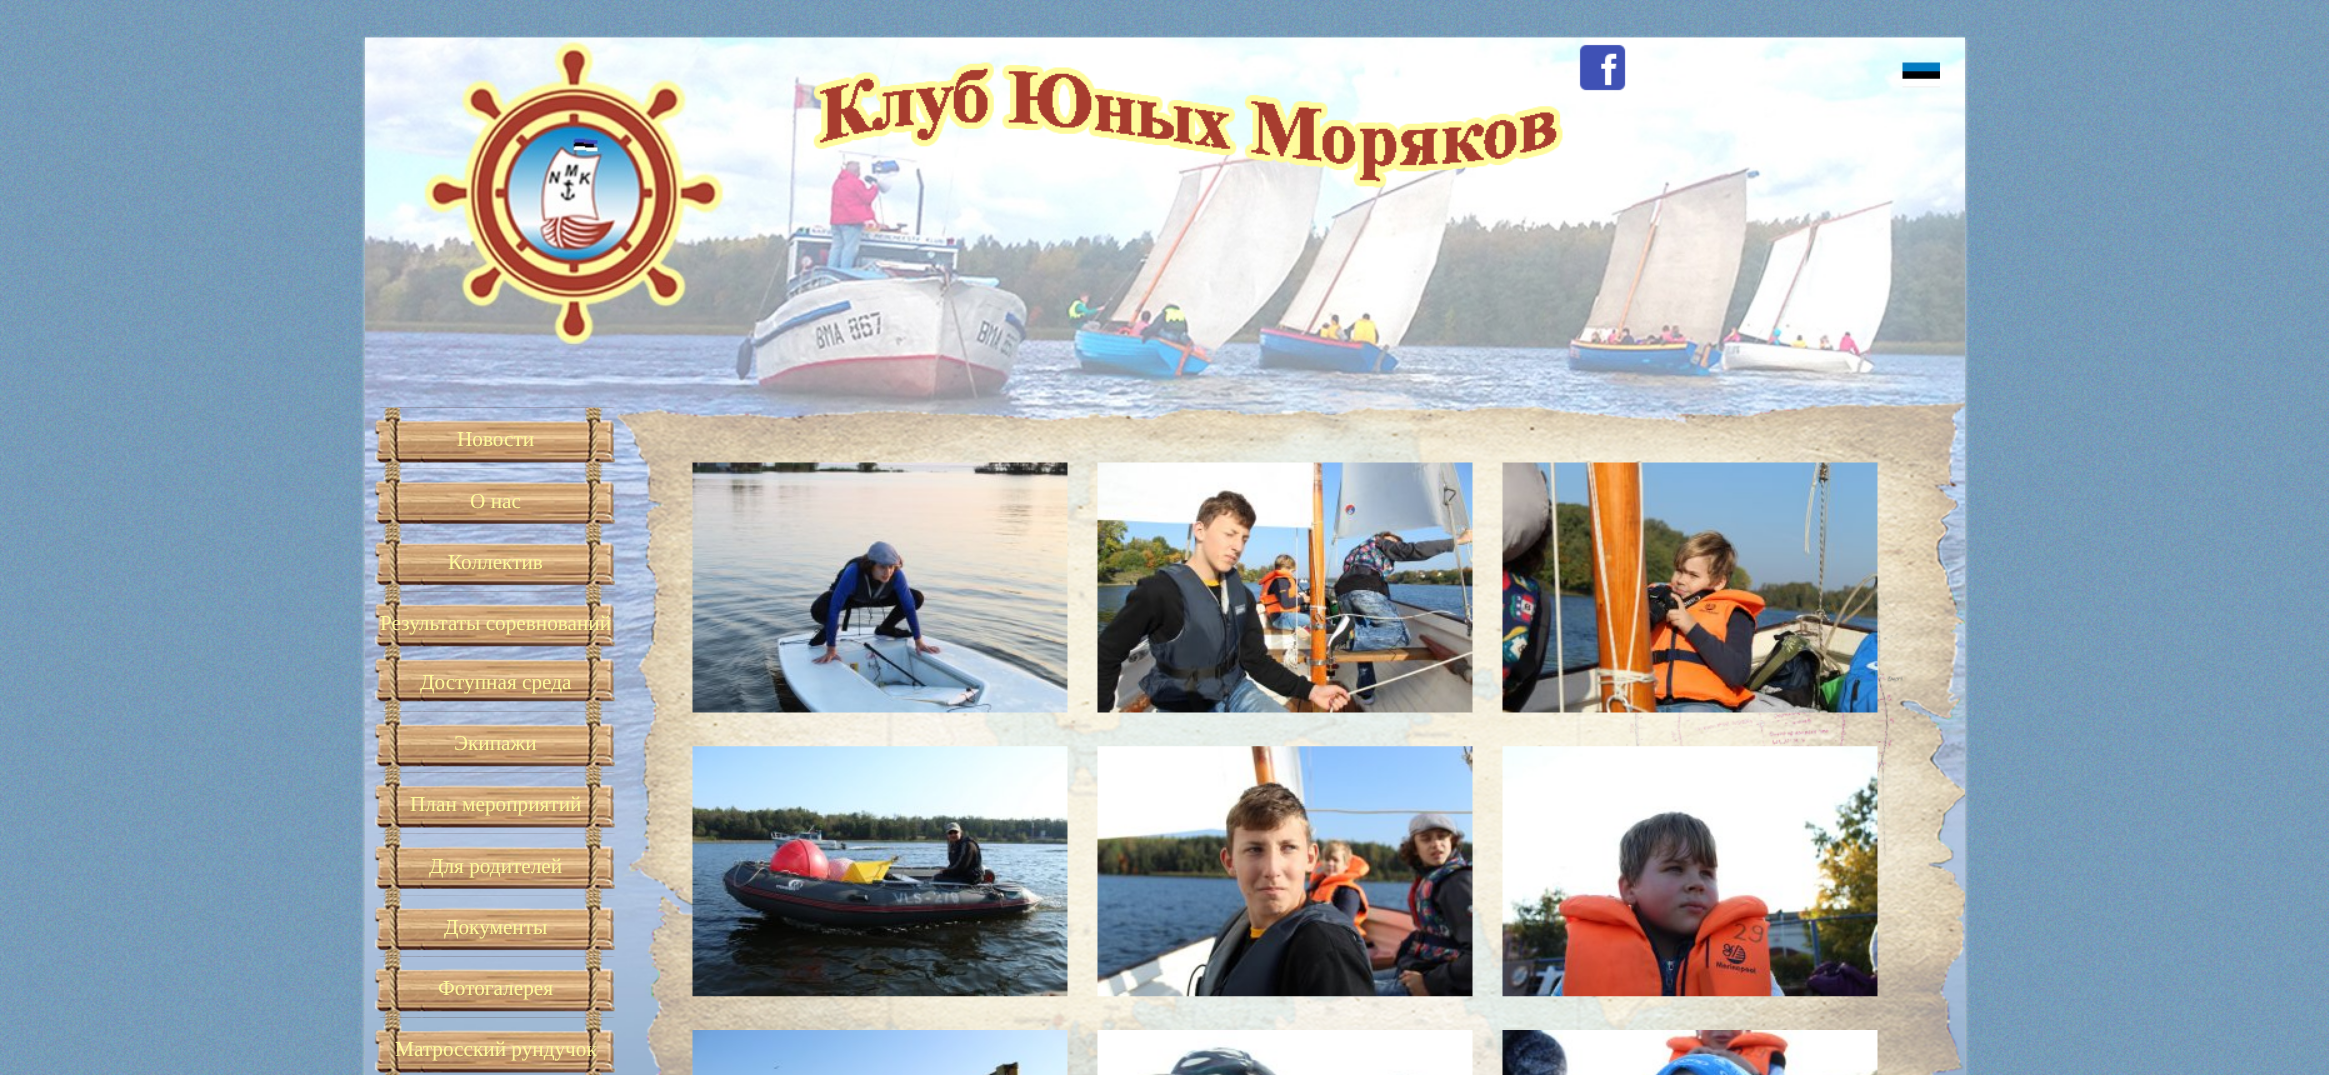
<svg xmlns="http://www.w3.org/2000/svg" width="2329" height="1075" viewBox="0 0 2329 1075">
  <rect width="100%" height="100%" fill="#fff"/>
  <image x="0" y="0" width="2329" height="1075" href="img/1.png"/>
  <path d="M365 39h1600v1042H365z" fill="#ddd" filter="blur(2px)"/>
  <image x="365" y="37" width="1600" height="1038" href="img/2.png"/>
  <image x="813" y="62" width="750" height="126" href="img/3.png"/>
  <image x="1579" y="44" width="47" height="47" href="img/4.png"/>
  <image x="1902" y="62" width="38" height="26" href="img/5.png"/>
  <image x="374" y="407" width="242" height="62" href="img/6.png"/>
  <image x="374" y="468" width="242" height="62" href="img/7.png"/>
  <image x="374" y="530" width="242" height="62" href="img/8.png"/>
  <image x="374" y="591" width="243" height="121" href="img/9.png"/>
  <image x="374" y="711" width="242" height="62" href="img/10.png"/>
  <image x="374" y="772" width="242" height="62" href="img/11.png"/>
  <image x="374" y="833" width="242" height="62" href="img/12.png"/>
  <image x="374" y="895" width="242" height="62" href="img/13.png"/>
  <image x="374" y="956" width="243" height="62" href="img/14.png"/>
  <image x="374" y="1017" width="243" height="58" href="img/15.png"/>
  <image x="617" y="399" width="1348" height="676" href="img/16.png"/>
  <image x="692" y="462" width="376" height="251" href="img/17.png"/>
  <image x="1097" y="462" width="376" height="251" href="img/18.png"/>
  <image x="1502" y="462" width="376" height="251" href="img/19.png"/>
  <image x="692" y="746" width="376" height="251" href="img/20.png"/>
  <image x="1097" y="746" width="376" height="251" href="img/21.png"/>
  <image x="1502" y="746" width="376" height="251" href="img/22.png"/>
  <image x="692" y="1030" width="376" height="45" href="img/23.png"/>
  <image x="1097" y="1030" width="376" height="45" href="img/24.png"/>
  <image x="1502" y="1030" width="376" height="45" href="img/25.png"/>
  <g font-family="Liberation Serif" font-size="21.25" fill="#fefb9c">
    <text x="457" y="446">Новости</text>
    <text x="470" y="508">О нас</text>
    <text x="448" y="569">Коллектив</text>
    <text x="380" y="630">Результаты соревнований</text>
    <text x="420" y="689">Доступная среда</text>
    <text x="454" y="750">Экипажи</text>
    <text x="410" y="811">План мероприятий</text>
    <text x="429" y="873">Для родителей</text>
    <text x="444" y="934">Документы</text>
    <text x="438" y="995">Фотогалерея</text>
    <text x="395" y="1056">Матросский рундучок</text>
  </g>
</svg>
